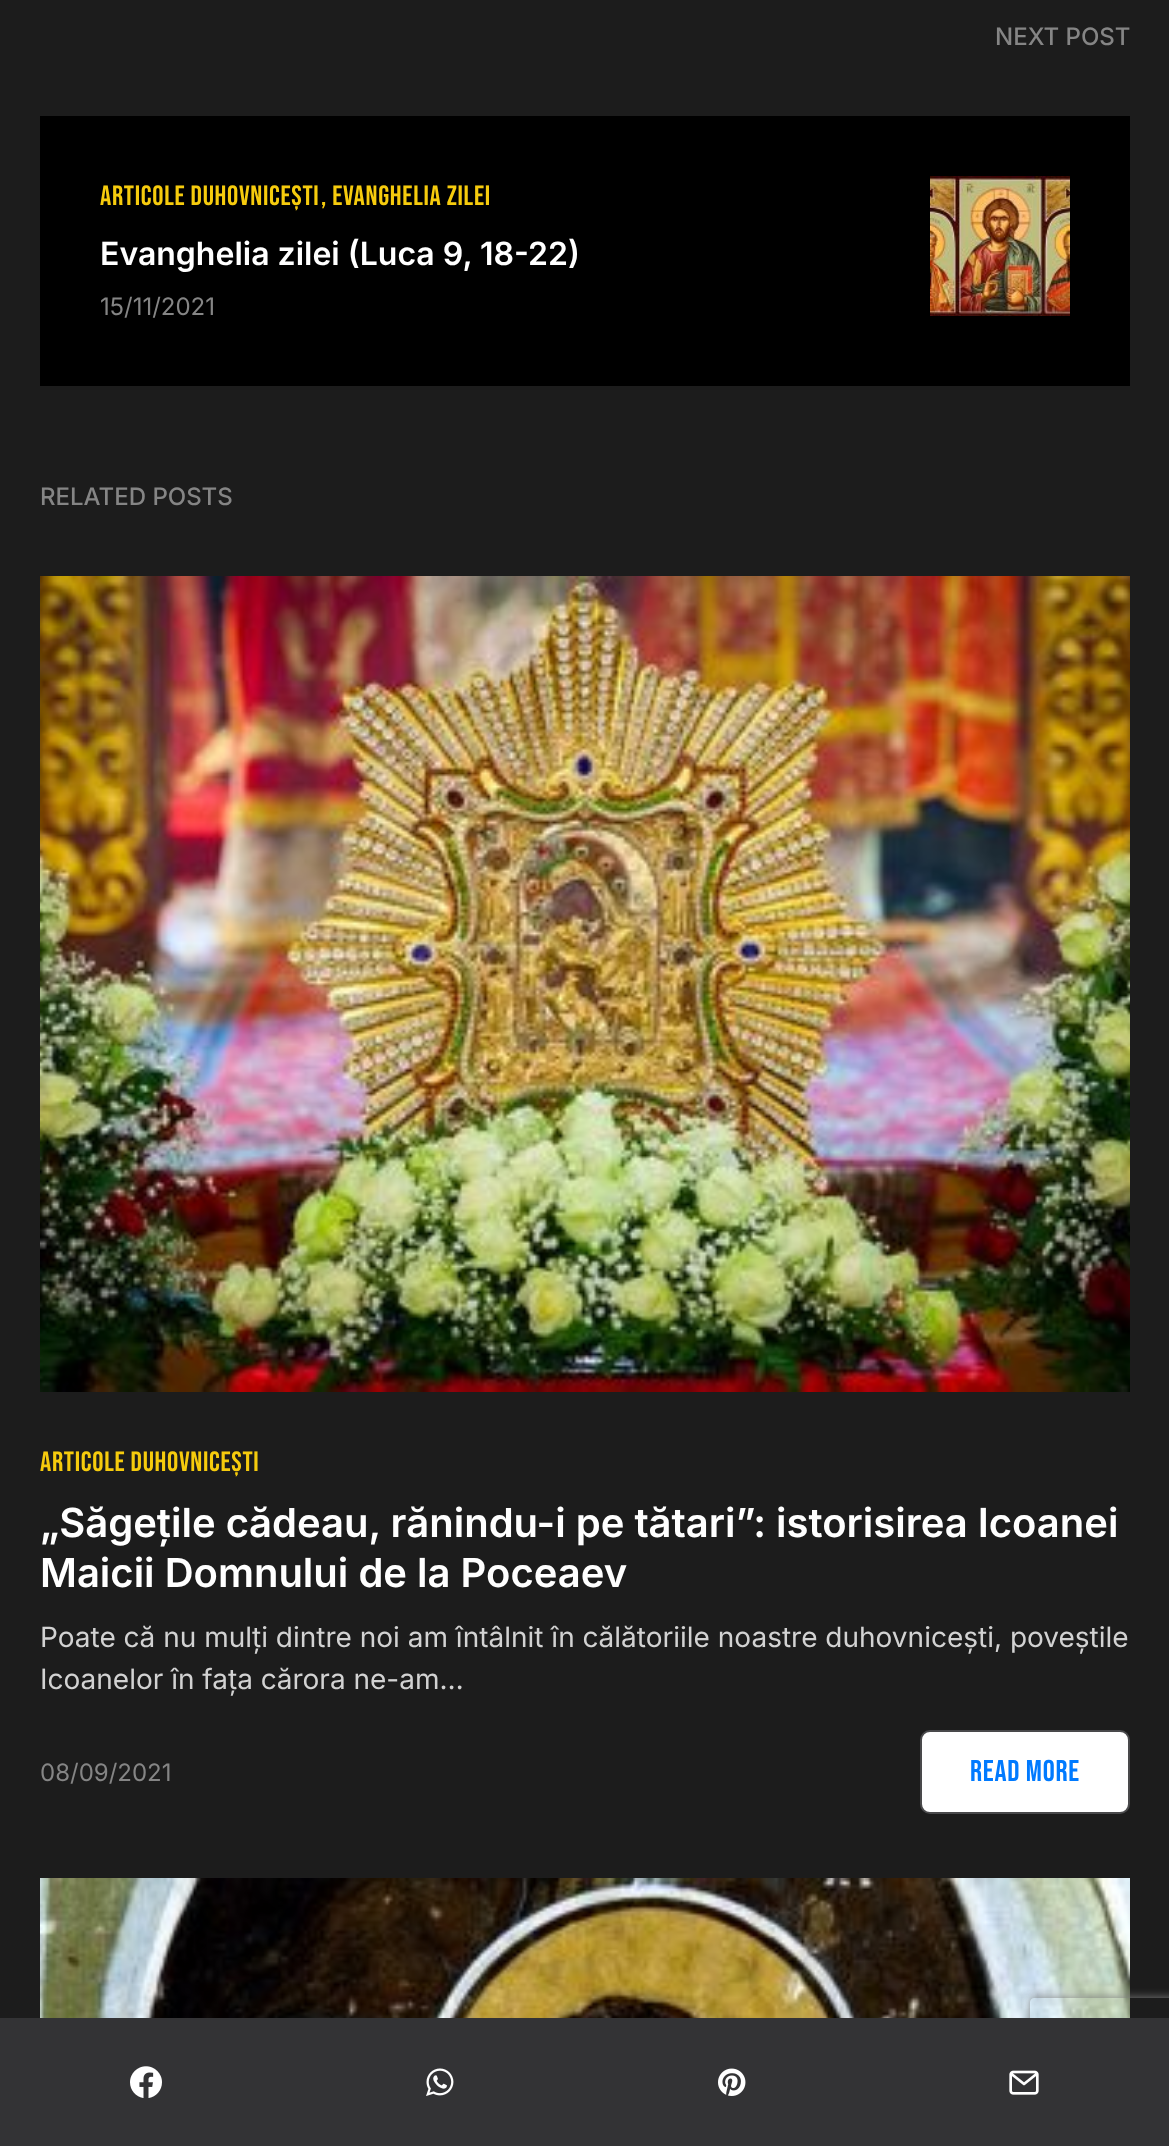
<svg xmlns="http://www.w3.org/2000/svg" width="1169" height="2146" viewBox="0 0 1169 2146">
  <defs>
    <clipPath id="clip1"><path d="M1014 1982H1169V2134H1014ZM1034 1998H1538C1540 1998 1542 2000 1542 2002V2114C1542 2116 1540 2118 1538 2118H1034C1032 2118 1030 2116 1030 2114V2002C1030 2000 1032 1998 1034 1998Z" clip-rule="evenodd"/></clipPath>
  </defs>
  <rect width="100%" height="100%" fill="#1c1c1c"/>
  <path d="M40 116h1090v270H40z" fill="#000"/>
  <image x="930" y="176" width="140" height="140" href="img/1.png"/>
  <image x="40" y="576" width="1090" height="816" href="img/2.png"/>
  <rect x="921" y="1731" width="208" height="82" rx="9" fill="#fff" stroke="#49494b" stroke-width="2"/>
  <image x="40" y="1878" width="1090" height="140" href="img/3.png"/>
  <g clip-path="url(#clip1)">
    <rect x="1030" y="1998" width="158" height="120" rx="4" fill="#808080" filter="blur(5px)"/>
  </g>
  <path d="M0 2018h1169v128H0z" fill="#333335"/>
  <image x="130" y="2066" width="32" height="32" href="img/4.png"/>
  <image x="426" y="2068" width="28" height="28" href="img/5.png"/>
  <image x="718" y="2068" width="28" height="28" href="img/6.png"/>
  <image x="1009" y="2070" width="30" height="25" href="img/7.png"/>
  <text x="995" y="45" font-family="Inter" font-size="24" font-weight="500" fill="#858585">NEXT POST</text>
  <g font-family="Bebas Neue" font-size="28" letter-spacing="0.7" fill="#f6cb0d">
    <text x="100" y="205">ARTICOLE DUHOVNICEȘTI</text>
    <text x="321" y="205">, EVANGHELIA ZILEI</text>
  </g>
  <text x="100" y="265" font-family="Inter" font-size="32" font-weight="600" fill="#fff">Evanghelia zilei (Luca 9, 18-22)</text>
  <text x="100" y="315" font-family="Inter" font-size="24" fill="#858585">15/11/2021</text>
  <text x="40" y="505" font-family="Inter" font-size="24" font-weight="500" fill="#858585">RELATED POSTS</text>
  <text x="40" y="1471" font-family="Bebas Neue" font-size="28" letter-spacing="0.7" fill="#f6cb0d">ARTICOLE DUHOVNICEȘTI</text>
  <g font-family="Inter" font-size="40" font-weight="600" fill="#fff">
    <text x="40" y="1537">„Săgețile cădeau, rănindu-i pe tătari”: istorisirea Icoanei</text>
    <text x="40" y="1587">Maicii Domnului de la Poceaev</text>
  </g>
  <g font-family="Inter" font-size="28" fill="#d2d2d2">
    <text x="40" y="1647">Poate că nu mulți dintre noi am întâlnit în călătoriile noastre duhovnicești, poveștile</text>
    <text x="40" y="1689">Icoanelor în fața cărora ne-am…</text>
  </g>
  <text x="40" y="1781" font-family="Inter" font-size="24" fill="#858585">08/09/2021</text>
  <text x="970" y="1781" font-family="Bebas Neue" font-size="30" letter-spacing="0.75" fill="#007aff">Read More</text>
</svg>
